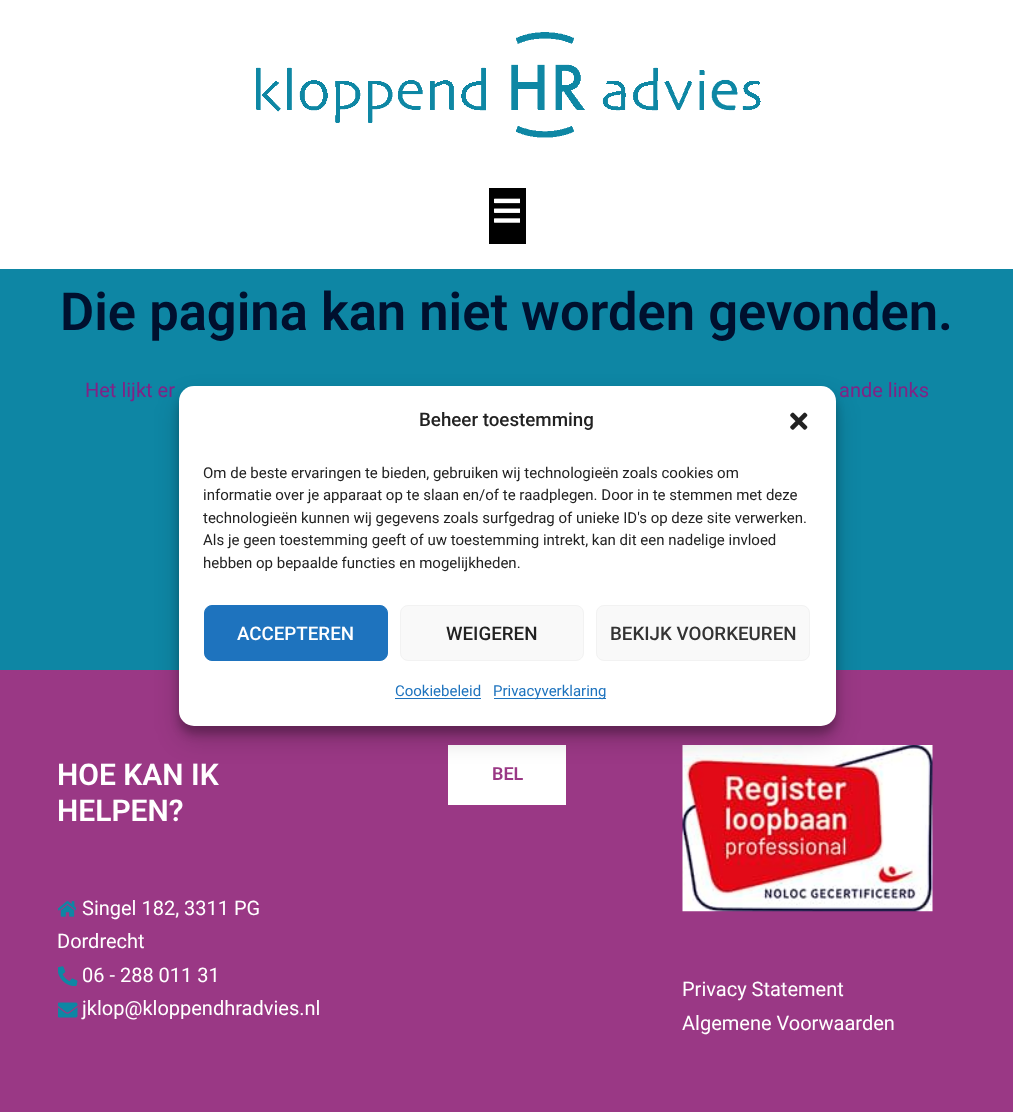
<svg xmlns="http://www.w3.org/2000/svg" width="1013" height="1112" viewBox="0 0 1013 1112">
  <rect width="100%" height="100%" fill="#0e86a4"/>
  <path d="M0 0h1013v269H0z" fill="#fff"/>
  <image x="256" y="32" width="505" height="106" href="img/1.png"/>
  <path d="M489 188h37v56H489z" fill="#000"/>
  <image x="494" y="198" width="26" height="25" href="img/2.png"/>
  <path d="M0 670h1013v442H0z" fill="#9a3885"/>
  <image x="58" y="901" width="18" height="16" href="img/3.png"/>
  <image x="58" y="966" width="20" height="20" href="img/4.png"/>
  <image x="58" y="1002" width="20" height="16" href="img/5.png"/>
  <path d="M448 745h118v60H448z" fill="#fff"/>
  <image x="682" y="745" width="251" height="167" href="img/6.png"/>
  <rect x="179" y="394" width="657" height="340" rx="15" fill="#0000003b" filter="blur(4px)"/>
  <rect x="179" y="399" width="657" height="340" rx="15" fill="#00000030" filter="blur(12.5px)"/>
  <rect x="179" y="386" width="657" height="340" rx="15" fill="#fff"/>
  <image x="790" y="412" width="18" height="18" href="img/7.png"/>
  <rect x="204.5" y="605.5" width="183" height="55" rx="7.5" fill="#1e73be" stroke="#1e73be"/>
  <rect x="400.5" y="605.5" width="183" height="55" rx="7.5" fill="#f9f9f9" stroke="#f2f2f2"/>
  <rect x="596.5" y="605.5" width="213" height="55" rx="7.5" fill="#f9f9f9" stroke="#f2f2f2"/>
  <path d="M395 698h86v1H395z" fill="#1e73be"/>
  <path d="M494 698h112v1H494z" fill="#1e73be"/>
  <text x="60" y="330" font-family="Roboto" font-size="52.5" font-weight="600" fill="#00102e">Die pagina kan niet worden gevonden.</text>
  <g font-family="Roboto" font-size="20" fill="#812386">
    <text x="85" y="397">Het lijkt er</text>
    <text x="839" y="397">ande links</text>
  </g>
  <g font-family="Roboto" font-size="30" font-weight="600" fill="#fff">
    <text x="57" y="785">HOE KAN IK</text>
    <text x="57" y="821">HELPEN?</text>
  </g>
  <g font-family="Roboto" font-size="20" fill="#fff">
    <text x="82" y="915">Singel 182, 3311 PG</text>
    <text x="57" y="948">Dordrecht</text>
    <text x="82" y="982">06 - 288 011 31</text>
    <text x="82" y="1015">jklop@kloppendhradvies.nl</text>
  </g>
  <text x="492" y="780" font-family="Roboto" font-size="18" font-weight="600" fill="#9a3885">BEL</text>
  <g font-family="Roboto" font-size="20" fill="#fff">
    <text x="682" y="996">Privacy Statement</text>
    <text x="682" y="1030">Algemene Voorwaarden</text>
  </g>
  <text x="419" y="426" font-family="Roboto" font-size="18.75" font-weight="500" fill="#222">Beheer toestemming</text>
  <g font-family="Roboto" font-size="15" fill="#222">
    <text x="203" y="478">Om de beste ervaringen te bieden, gebruiken wij technologieën zoals cookies om</text>
    <text x="203" y="500">informatie over je apparaat op te slaan en/of te raadplegen. Door in te stemmen met deze</text>
    <text x="203" y="523">technologieën kunnen wij gegevens zoals surfgedrag of unieke ID's op deze site verwerken.</text>
    <text x="203" y="545">Als je geen toestemming geeft of uw toestemming intrekt, kan dit een nadelige invloed</text>
    <text x="203" y="568">hebben op bepaalde functies en mogelijkheden.</text>
  </g>
  <text x="237" y="640" font-family="Roboto" font-size="18.75" font-weight="500" fill="#fff">ACCEPTEREN</text>
  <text x="446" y="640" font-family="Roboto" font-size="18.75" font-weight="500" fill="#222">WEIGEREN</text>
  <text x="610" y="640" font-family="Roboto" font-size="18.75" font-weight="500" fill="#333">BEKIJK VOORKEUREN</text>
  <g font-family="Roboto" font-size="15" fill="#1e73be">
    <text x="395" y="696">Cookiebeleid</text>
    <text x="493" y="696">Privacyverklaring</text>
  </g>
</svg>
